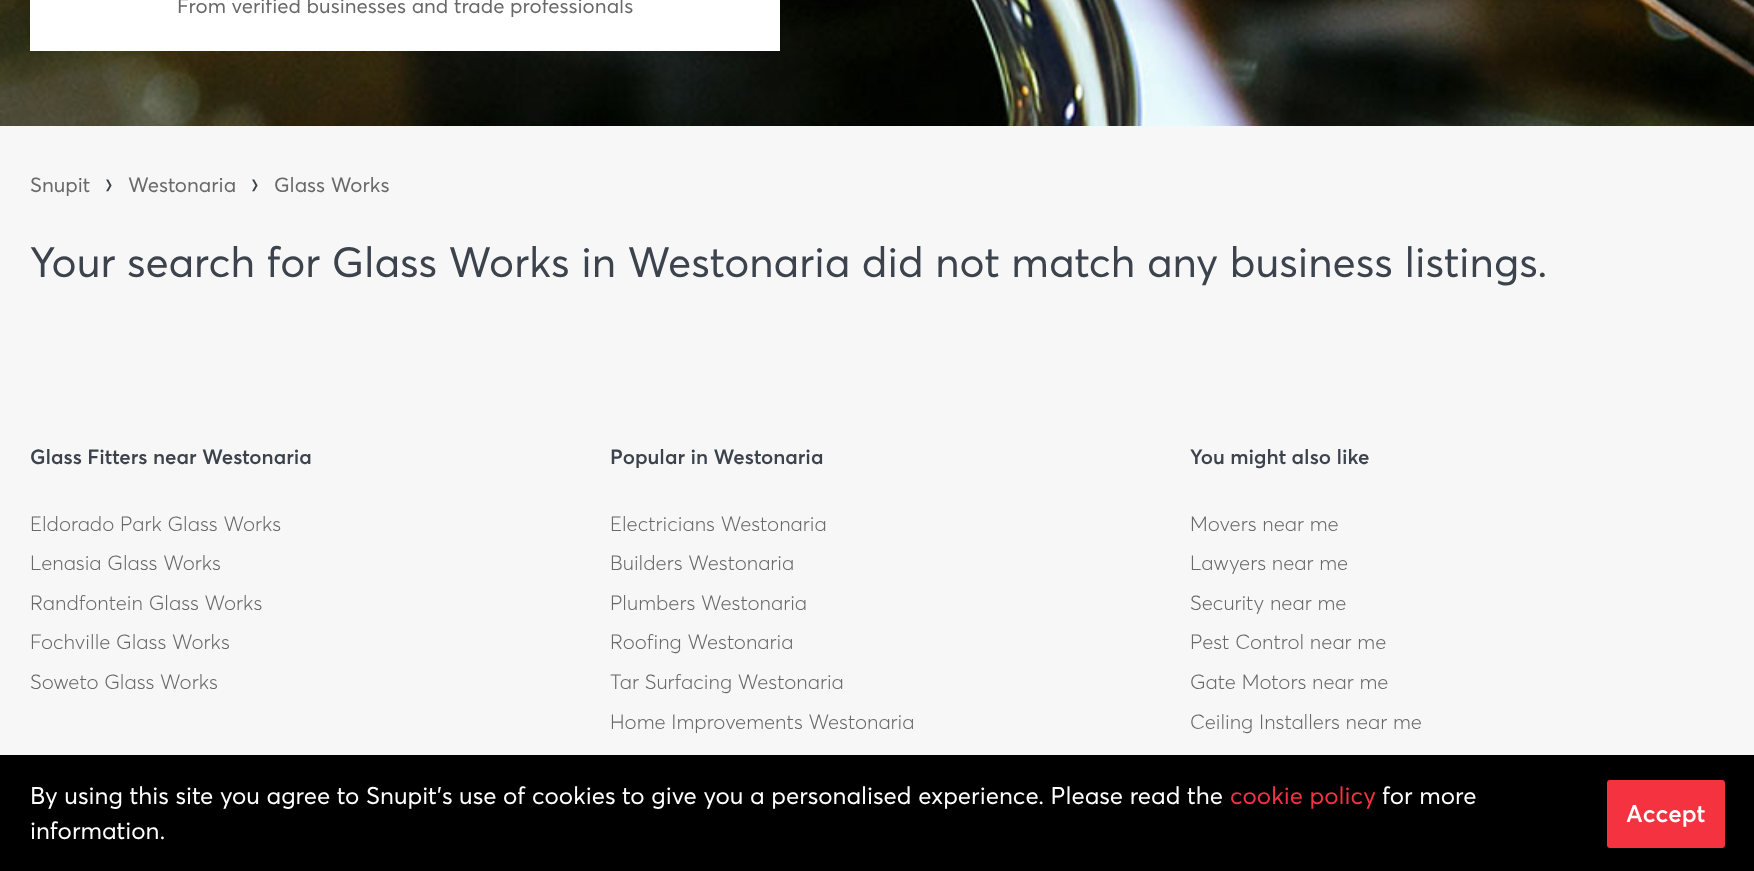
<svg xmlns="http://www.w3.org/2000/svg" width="1754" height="871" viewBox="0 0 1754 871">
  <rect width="100%" height="100%" fill="#f7f7f7"/>
  <image x="0" y="0" width="1754" height="126" href="img/1.png"/>
  <path d="M30 0h750v51H30z" fill="#fff"/>
  <path d="M0 755h1754v116H0z" fill="#000"/>
  <rect x="1608" y="781" width="116" height="66" rx="2" fill="#f53240" stroke="#f53240" stroke-width="2"/>
  <g font-family="'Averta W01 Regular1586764'" font-size="20.4" fill="#696969">
    <text x="177" y="13">From verified businesses and trade professionals</text>
    <text x="30" y="192">Snupit</text>
  </g>
  <text x="105" y="192" font-family="'Averta W01 Regular1586764'" font-size="27" fill="#3c434d">›</text>
  <text x="128" y="192" font-family="'Averta W01 Regular1586764'" font-size="20.4" fill="#696969">Westonaria</text>
  <text x="251" y="192" font-family="'Averta W01 Regular1586764'" font-size="27" fill="#3c434d">›</text>
  <text x="274" y="192" font-family="'Averta W01 Regular1586764'" font-size="20.4" fill="#696969">Glass Works</text>
  <text x="30" y="277" font-family="'Averta W01 Regular1586764'" font-size="42" fill="#3c434d">Your search for Glass Works in Westonaria did not match any business listings.</text>
  <text x="30" y="464" font-family="'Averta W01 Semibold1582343'" font-size="20.4" font-weight="600" fill="#3c434d">Glass Fitters near Westonaria</text>
  <g font-family="'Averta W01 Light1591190'" font-size="20.4" font-weight="300" fill="#696969">
    <text x="30" y="531">Eldorado Park Glass Works</text>
    <text x="30" y="570">Lenasia Glass Works</text>
    <text x="30" y="610">Randfontein Glass Works</text>
    <text x="30" y="649">Fochville Glass Works</text>
    <text x="30" y="689">Soweto Glass Works</text>
  </g>
  <text x="610" y="464" font-family="'Averta W01 Semibold1582343'" font-size="20.4" font-weight="600" fill="#3c434d">Popular in Westonaria</text>
  <g font-family="'Averta W01 Light1591190'" font-size="20.4" font-weight="300" fill="#696969">
    <text x="610" y="531">Electricians Westonaria</text>
    <text x="610" y="570">Builders Westonaria</text>
    <text x="610" y="610">Plumbers Westonaria</text>
    <text x="610" y="649">Roofing Westonaria</text>
    <text x="610" y="689">Tar Surfacing Westonaria</text>
    <text x="610" y="729">Home Improvements Westonaria</text>
  </g>
  <text x="1190" y="464" font-family="'Averta W01 Semibold1582343'" font-size="20.4" font-weight="600" fill="#3c434d">You might also like</text>
  <g font-family="'Averta W01 Light1591190'" font-size="20.4" font-weight="300" fill="#696969">
    <text x="1190" y="531">Movers near me</text>
    <text x="1190" y="570">Lawyers near me</text>
    <text x="1190" y="610">Security near me</text>
    <text x="1190" y="649">Pest Control near me</text>
    <text x="1190" y="689">Gate Motors near me</text>
    <text x="1190" y="729">Ceiling Installers near me</text>
  </g>
  <text x="30" y="804" font-family="'Averta W01 Regular1586764'" font-size="24" fill="#fff">By using this site you agree to Snupit's use of cookies to give you a personalised experience. Please read the</text>
  <text x="1230" y="804" font-family="'Averta W01 Regular1586764'" font-size="24" fill="#f53240">cookie policy</text>
  <g font-family="'Averta W01 Regular1586764'" font-size="24" fill="#fff">
    <text x="1382" y="804">for more</text>
    <text x="30" y="839">information.</text>
  </g>
  <text x="1626" y="822" font-family="'Averta W01 Semibold1582343'" font-size="24" font-weight="600" fill="#fff">Accept</text>
</svg>
